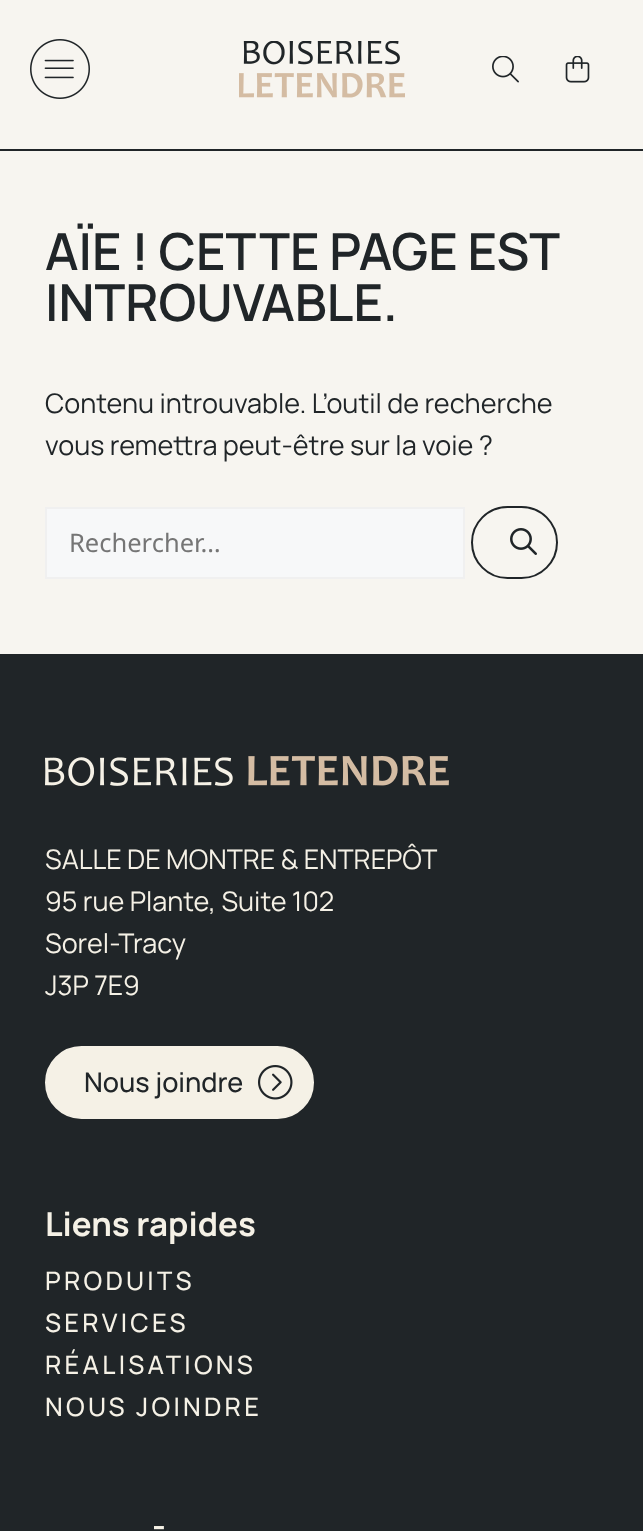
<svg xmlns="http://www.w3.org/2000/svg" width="643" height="1531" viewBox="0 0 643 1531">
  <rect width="100%" height="100%" fill="#f7f5f0"/>
  <path d="M0 149h643v2H0z" fill="#202528"/>
  <image x="30" y="39" width="60" height="60" href="img/1.png"/>
  <image x="239" y="41" width="166" height="57" href="img/2.png"/>
  <image x="492" y="56" width="27" height="27" href="img/3.png"/>
  <image x="565" y="56" width="25" height="27" href="img/4.png"/>
  <path d="M46 508h418v70H46z" fill="#f7f8f9" stroke="#f0f0f0" stroke-width="2"/>
  <rect x="472" y="507" width="85" height="71" rx="35.5" fill="none" stroke="#202528" stroke-width="2"/>
  <image x="510" y="528" width="27" height="27" href="img/5.png"/>
  <path d="M0 654h643v877H0z" fill="#202528"/>
  <image x="45" y="756" width="404" height="30" href="img/6.png"/>
  <rect x="46" y="1047" width="267" height="71" rx="35.5" fill="#f5f1e6" stroke="#f5f1e6" stroke-width="2"/>
  <image x="258" y="1065" width="35" height="35" href="img/7.png"/>
  <g font-family="Manrope" font-size="51" font-weight="600" fill="#202528">
    <text x="45" y="270" word-spacing="-0.5">AÏE ! CETTE PAGE EST</text>
    <text x="45" y="321">INTROUVABLE.</text>
  </g>
  <g font-family="Manrope" font-size="27" fill="#202528">
    <text x="45" y="413">Contenu introuvable. L’outil de recherche</text>
    <text x="45" y="455">vous remettra peut-être sur la voie ?</text>
  </g>
  <text x="69" y="552" font-family="Noto Sans" font-size="25.5" fill="#757575">Rechercher…</text>
  <g font-family="Manrope" font-size="27" fill="#f5f1e6">
    <text x="45" y="869">SALLE DE MONTRE &amp; ENTREPÔT</text>
    <text x="45" y="911">95 rue Plante, Suite 102</text>
    <text x="45" y="953">Sorel-Tracy</text>
    <text x="45" y="995">J3P 7E9</text>
  </g>
  <text x="84" y="1092" font-family="Manrope" font-size="27" font-weight="500" fill="#202528">Nous joindre</text>
  <text x="45" y="1236" font-family="Manrope" font-size="33" font-weight="bold" fill="#f5f1e6">Liens rapides</text>
  <g font-family="Manrope" font-size="25.5" font-weight="500" letter-spacing="3.25" fill="#f5f1e6">
    <text x="45" y="1290">PRODUITS</text>
    <text x="45" y="1332">SERVICES</text>
    <text x="45" y="1374">RÉALISATIONS</text>
    <text x="45" y="1416">NOUS JOINDRE</text>
  </g>
  <text x="152" y="1538" font-family="Manrope" font-size="33" font-weight="bold" fill="#f5f1e6">-</text>
</svg>
